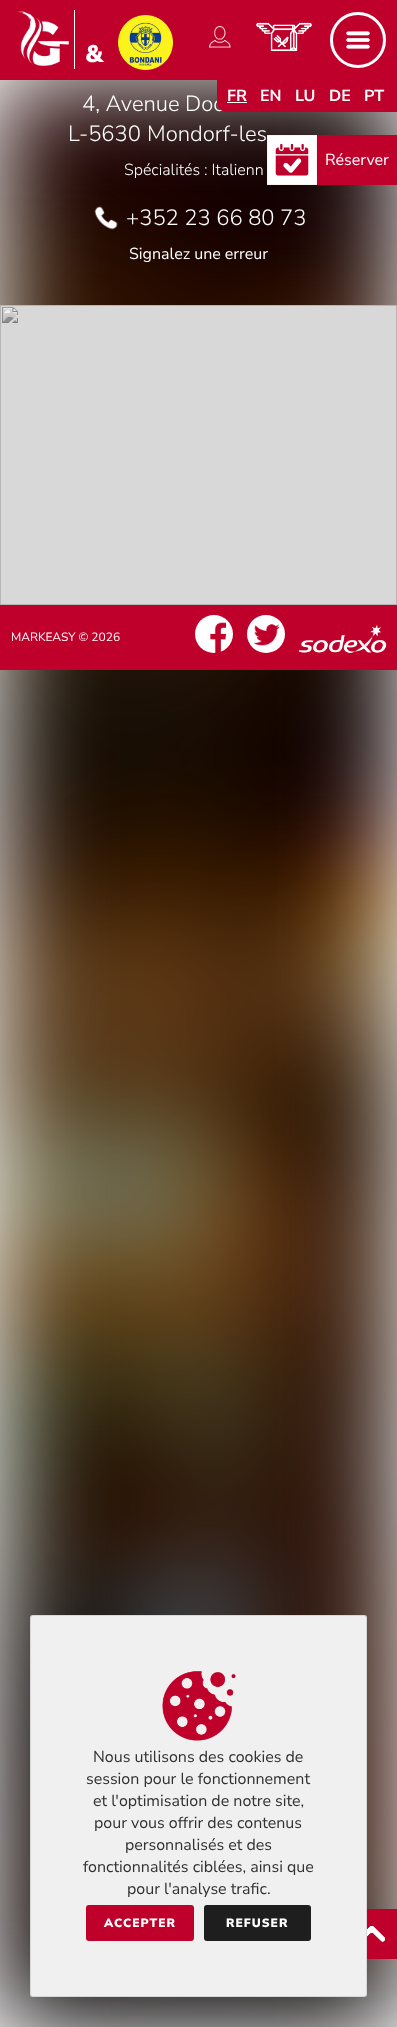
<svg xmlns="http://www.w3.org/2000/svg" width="397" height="2027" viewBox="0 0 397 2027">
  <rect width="100%" height="100%" fill="#fff"/>
  <path d="M0 0h397v80H0z" fill="#bf002b"/>
  <image x="16" y="11" width="53" height="55" href="img/1.png"/>
  <path d="M74 10h1v59H74z" fill="#fff"/>
  <image x="209" y="26" width="22" height="22" href="img/2.png"/>
  <image x="256" y="22" width="56" height="30" href="img/3.png"/>
  <circle cx="358" cy="40" r="26.5" fill="none" stroke="#fff" stroke-width="3"/>
  <image x="346" y="31" width="24" height="18" href="img/4.png"/>
  <image x="118" y="15" width="55" height="55" href="img/5.png"/>
  <image x="0" y="80" width="397" height="1947" href="img/6.png"/>
  <image x="94" y="206" width="24" height="24" href="img/7.png"/>
  <path d="M267 135h130v50H267z" fill="#bf002b"/>
  <image x="267" y="135" width="50" height="50" href="img/8.png"/>
  <image x="0" y="305" width="397" height="300" href="img/9.png"/>
  <path d="M0 605h397v65H0z" fill="#bf002b"/>
  <image x="195" y="615" width="38" height="38" href="img/10.png"/>
  <image x="247" y="615" width="38" height="38" href="img/11.png"/>
  <image x="298" y="625" width="89" height="28" href="img/12.png"/>
  <rect x="30" y="1615" width="337" height="382" rx="3" fill="#f0f0f0"/>
  <rect x="30.5" y="1615.5" width="336" height="381" rx="2.5" fill="none" stroke="#0000001a"/>
  <image x="162" y="1671" width="74" height="70" href="img/13.png"/>
  <rect x="86" y="1905" width="108" height="36" rx="3" fill="#bf002b"/>
  <rect x="204" y="1905" width="107" height="36" rx="3" fill="#1e1e1e"/>
  <path d="M367 1909h30v50H367z" fill="#bf002b"/>
  <image x="367" y="1926" width="18" height="16" href="img/14.png"/>
  <image x="367" y="1926" width="18" height="16" href="img/15.png"/>
  <text x="85" y="62" font-family="Nunito Sans" font-size="24" font-weight="900" fill="#fff">&amp;</text>
  <text x="82" y="111" font-family="Nunito Sans" font-size="22" font-weight="300" fill="#fff">4, Avenue Doc</text>
  <path d="M217 80H397V112H227C221.5 112 217 107.5 217 102Z" fill="#bf002b"/>
  <g font-family="Nunito Sans" font-size="16" font-weight="bold" fill="#fff">
    <text x="364" y="101">PT</text>
    <text x="329" y="101">DE</text>
    <text x="295" y="101">LU</text>
    <text x="260" y="101">EN</text>
    <text x="227" y="101">FR</text>
  </g>
  <path d="M227 102h20v1H227z" fill="#fff"/>
  <g font-family="Nunito Sans" font-size="22" font-weight="300" fill="#fff">
    <text x="68" y="141">L-5630</text>
    <text x="147" y="141">Mondorf-les</text>
  </g>
  <text x="124" y="175" font-family="Nunito Sans" font-size="16" font-weight="300" fill="#fff">Spécialités : Italienn</text>
  <text x="126" y="225" font-family="Nunito Sans" font-size="22" font-weight="300" fill="#fff">+352 23 66 80 73</text>
  <g font-family="Nunito Sans" font-size="16" fill="#fff">
    <text x="129" y="259">Signalez une erreur</text>
    <text x="325" y="165">Réserver</text>
  </g>
  <text x="11" y="641" font-family="Nunito Sans" font-size="12" fill="#fff">MARKEASY © 2026</text>
  <g font-family="Nunito Sans" font-size="16" fill="#323232">
    <text x="93" y="1762">Nous utilisons des cookies de</text>
    <text x="86" y="1784">session pour le fonctionnement</text>
    <text x="93" y="1806">et l'optimisation de notre site,</text>
    <text x="94" y="1828">pour vous offrir des contenus</text>
    <text x="125" y="1850">personnalisés et des</text>
    <text x="83" y="1872">fonctionnalités ciblées, ainsi que</text>
    <text x="127" y="1894">pour l'analyse trafic.</text>
  </g>
  <g font-family="Nunito Sans" font-size="12" font-weight="900" letter-spacing="1" fill="#fff">
    <text x="104" y="1927">ACCEPTER</text>
    <text x="226" y="1927">REFUSER</text>
  </g>
</svg>
